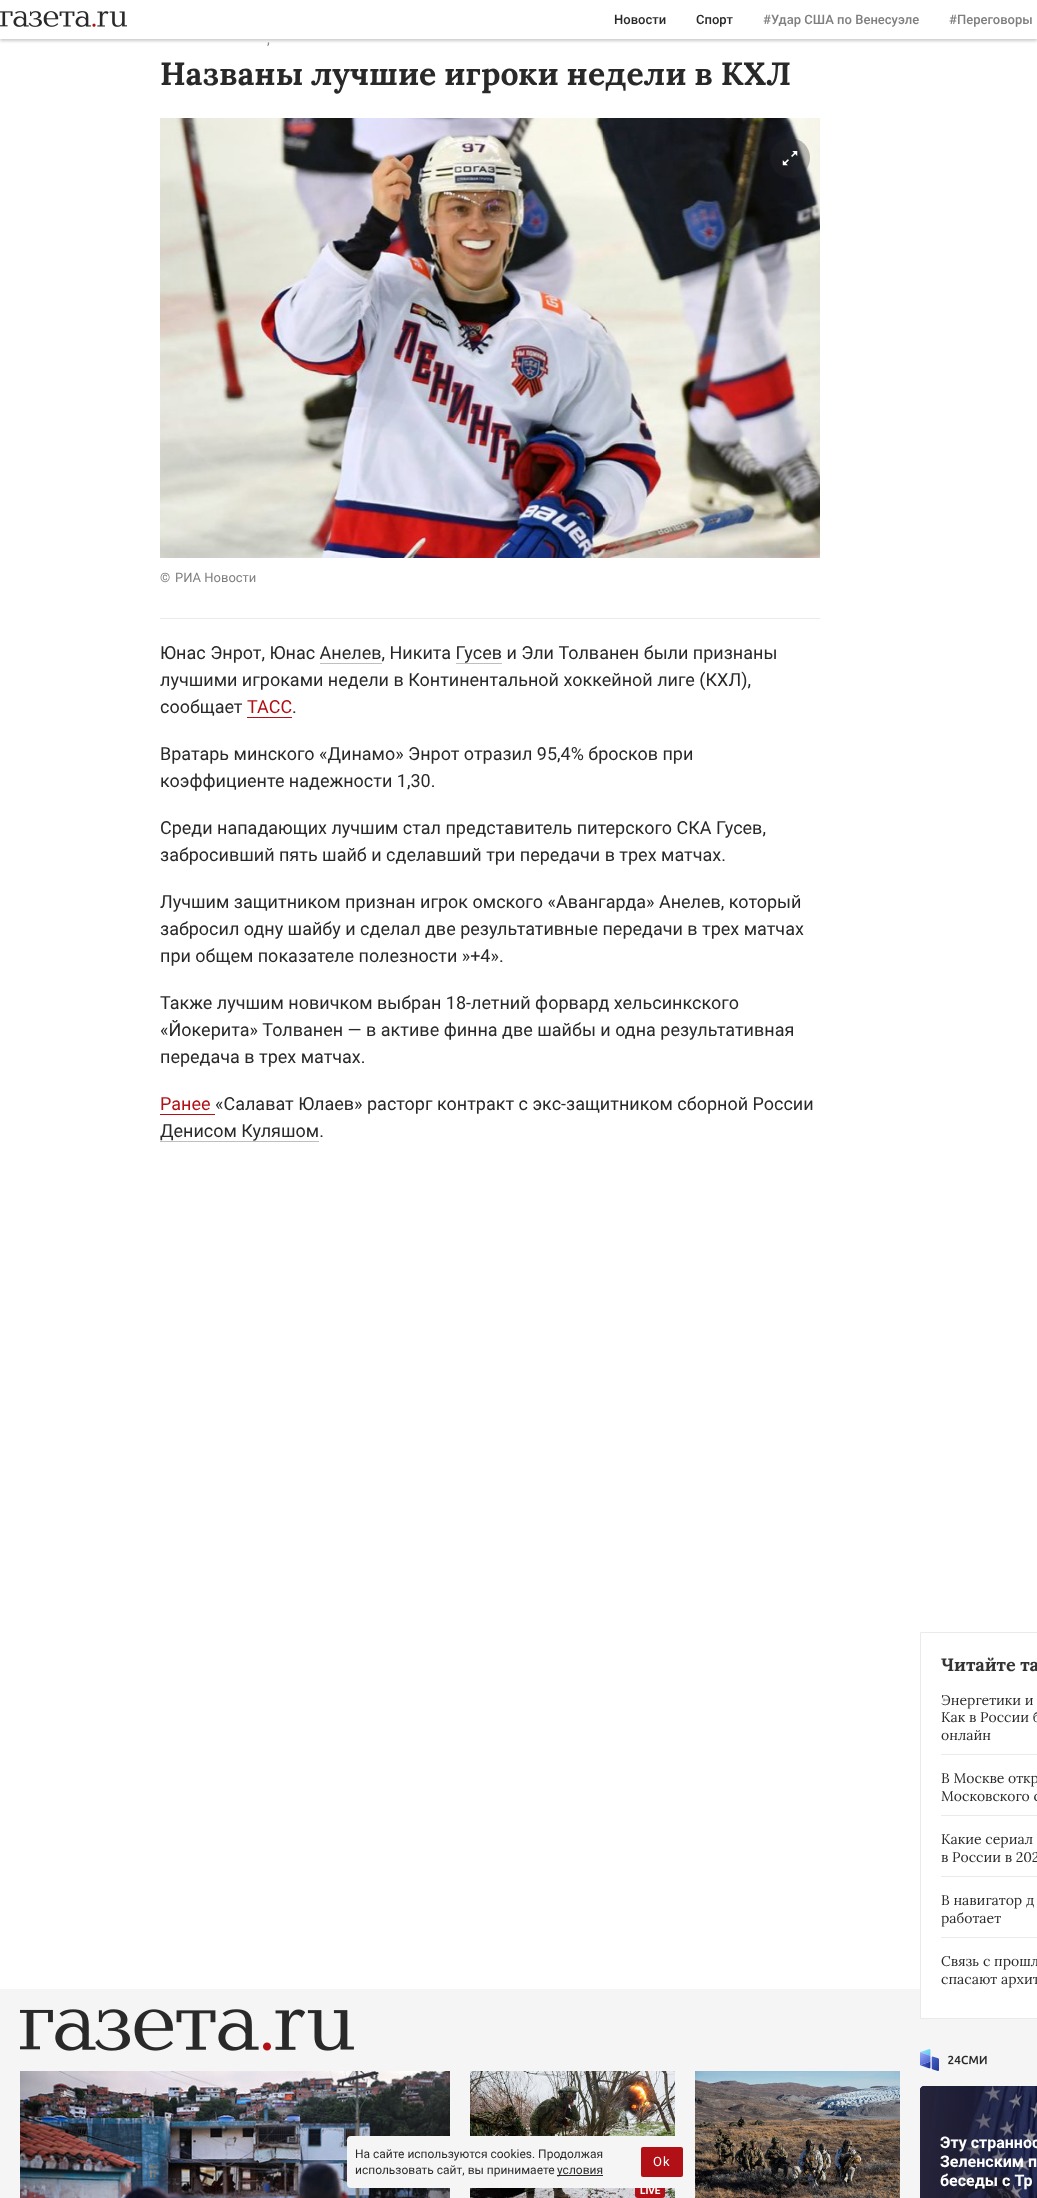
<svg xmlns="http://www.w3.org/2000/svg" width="1037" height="2198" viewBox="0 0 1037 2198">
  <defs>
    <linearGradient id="g1" gradientUnits="userSpaceOnUse" x1="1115" y1="2171" x2="920" y2="2171"><stop offset="0" stop-color="#25243a" stop-opacity="0"/><stop offset="1" stop-color="#25243a"/></linearGradient>
  </defs>
  <rect width="100%" height="100%" fill="#fff"/>
  <path d="M0 1h1037v40H0z" fill="#00000033" filter="blur(1.5px)"/>
  <path d="M0 0h1037v39H0z" fill="#fff"/>
  <image x="0" y="11" width="127" height="16" href="img/1.png"/>
  <image x="160" y="118" width="660" height="440" href="img/2.png"/>
  <circle cx="790" cy="158" r="20" fill="#2929294d"/>
  <image x="782" y="151" width="16" height="15" href="img/3.png"/>
  <path d="M160 618h660v1H160z" fill="#eaeaea"/>
  <path d="M320 663h62v1H320z" fill="#bfbfbf"/>
  <path d="M456 663h46v1H456z" fill="#bfbfbf"/>
  <path d="M247 717h45v1H247z" fill="#b11116"/>
  <path d="M160 1114h55v1H160z" fill="#b11116"/>
  <path d="M160 1141h159v1H160z" fill="#bfbfbf"/>
  <path d="M0 1989h1037v209H0z" fill="#f5f5f5"/>
  <image x="20" y="2009" width="334" height="42" href="img/4.png"/>
  <image x="20" y="2071" width="430" height="127" href="img/5.png"/>
  <image x="470" y="2071" width="205" height="127" href="img/6.png"/>
  <rect x="635" y="2184" width="30" height="14" rx="3" fill="#b11116"/>
  <image x="695" y="2071" width="205" height="127" href="img/7.png"/>
  <path d="M921 1989h116v29H921z" fill="#fff"/>
  <path d="M920.5 1632.5h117v386H920.5z" fill="none" stroke="#eaeaea"/>
  <path d="M941 1754h96v1H941z" fill="#eaeaea"/>
  <path d="M941 1815h96v1H941z" fill="#eaeaea"/>
  <path d="M941 1876h96v1H941z" fill="#eaeaea"/>
  <path d="M941 1937h96v1H941z" fill="#eaeaea"/>
  <image x="920" y="2049" width="67" height="22" href="img/8.png"/>
  <image x="920" y="2086" width="117" height="112" href="img/9.png"/>
  <path d="M924 2086H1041V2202H924C922 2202 920 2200 920 2198V2090C920 2088 922 2086 924 2086Z" fill="url(#g1)"/>
  <g font-family="Roboto" font-size="13" font-weight="500" fill="#292929">
    <text x="614" y="24">Новости</text>
    <text x="696" y="24">Спорт</text>
  </g>
  <g font-family="Roboto" font-size="13" font-weight="500" fill="#7f7f7f">
    <text x="763" y="24">#Удар США по Венесуэле</text>
    <text x="949" y="24">#Переговоры</text>
  </g>
  <text x="267" y="44" font-family="Roboto" font-size="14" fill="#7f7f7f">,</text>
  <text x="160" y="85" font-family="Lora" font-size="32" font-weight="bold" fill="#292929">Названы лучшие игроки недели в КХЛ</text>
  <g font-family="Roboto" font-size="13" fill="#7f7f7f">
    <text x="160" y="582">©</text>
    <text x="175" y="582">РИА Новости</text>
  </g>
  <g font-family="Roboto" font-size="18" fill="#292929">
    <text x="160" y="659">Юнас Энрот, Юнас Анелев, Никита Гусев и Эли Толванен были признаны</text>
    <text x="160" y="686">лучшими игроками недели в Континентальной хоккейной лиге (КХЛ),</text>
    <text x="160" y="713">сообщает</text>
  </g>
  <text x="247" y="713" font-family="Roboto" font-size="18" fill="#b11116">ТАСС</text>
  <g font-family="Roboto" font-size="18" fill="#292929">
    <text x="292" y="713">.</text>
    <text x="160" y="760">Вратарь минского «Динамо» Энрот отразил 95,4% бросков при</text>
    <text x="160" y="787">коэффициенте надежности 1,30.</text>
    <text x="160" y="834">Среди нападающих лучшим стал представитель питерского СКА Гусев,</text>
    <text x="160" y="861">забросивший пять шайб и сделавший три передачи в трех матчах.</text>
    <text x="160" y="908">Лучшим защитником признан игрок омского «Авангарда» Анелев, который</text>
    <text x="160" y="935">забросил одну шайбу и сделал две результативные передачи в трех матчах</text>
    <text x="160" y="962">при общем показателе полезности »+4».</text>
    <text x="160" y="1009">Также лучшим новичком выбран 18-летний форвард хельсинкского</text>
    <text x="160" y="1036">«Йокерита» Толванен — в активе финна две шайбы и одна результативная</text>
    <text x="160" y="1063">передача в трех матчах.</text>
  </g>
  <text x="160" y="1110" font-family="Roboto" font-size="18" fill="#b11116">Ранее</text>
  <g font-family="Roboto" font-size="18" fill="#292929">
    <text x="215" y="1110">«Салават Юлаев» расторг контракт с экс-защитником сборной России</text>
    <text x="160" y="1137">Денисом Куляшом.</text>
  </g>
  <text x="640" y="2194" font-family="Roboto" font-size="10" font-weight="bold" fill="#fff">LIVE</text>
  <text x="941" y="1671" font-family="Lora" font-size="18" font-weight="bold" fill="#333">Читайте та</text>
  <g font-family="Lora" font-size="14" fill="#292929">
    <text x="941" y="1705">Энергетики и</text>
    <text x="941" y="1722">Как в России б</text>
    <text x="941" y="1740">онлайн</text>
    <text x="941" y="1783">В Москве откр</text>
    <text x="941" y="1801">Московского с</text>
    <text x="941" y="1844">Какие сериал</text>
    <text x="941" y="1862">в России в 202</text>
    <text x="941" y="1905">В навигатор д</text>
    <text x="941" y="1923">работает</text>
    <text x="941" y="1966">Связь с прошл</text>
    <text x="941" y="1984">спасают архит</text>
  </g>
  <g font-family="Roboto" font-size="16" font-weight="bold" fill="#fff">
    <text x="940" y="2148">Эту страннос</text>
    <text x="940" y="2167">Зеленским п</text>
    <text x="940" y="2186">беседы с Тр</text>
  </g>
  <rect x="347" y="2136" width="344" height="52" rx="4" fill="#f5f5f5"/>
  <g font-family="Roboto" font-size="12" fill="#292929">
    <text x="355" y="2158">На сайте используются cookies. Продолжая</text>
    <text x="355" y="2174">использовать сайт, вы принимаете</text>
  </g>
  <path d="M557 2175h46v1H557z" fill="#292929"/>
  <text x="557" y="2174" font-family="Roboto" font-size="12" fill="#292929">условия</text>
  <rect x="641" y="2147" width="42" height="30" rx="2" fill="#b11116"/>
  <text x="653" y="2166" font-family="Roboto" font-size="13" letter-spacing="1" fill="#fff">Ok</text>
</svg>
